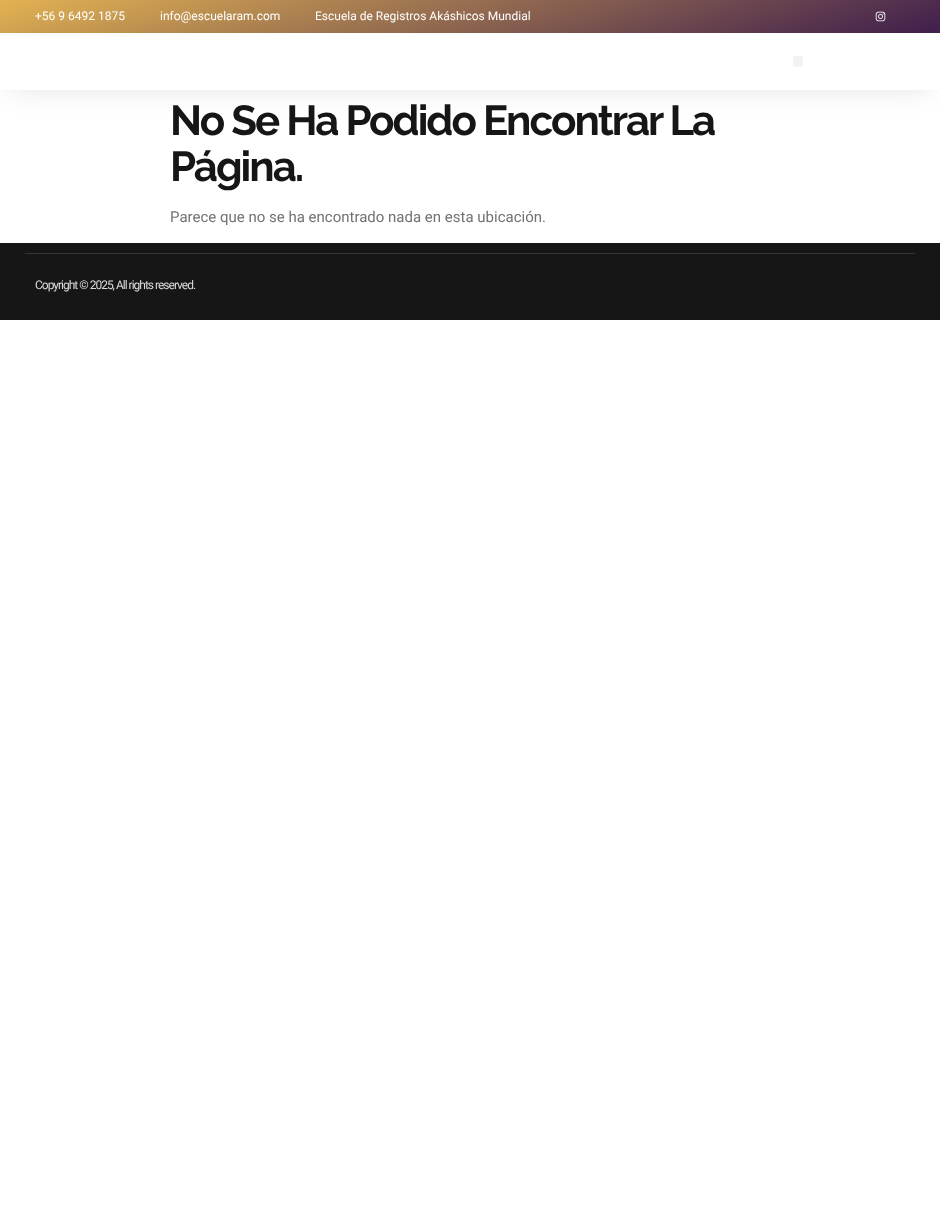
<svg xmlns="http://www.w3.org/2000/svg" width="940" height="1213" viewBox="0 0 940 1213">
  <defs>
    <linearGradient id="g1" gradientUnits="userSpaceOnUse" x1="410" y1="-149" x2="530" y2="182"><stop offset="0" stop-color="#e2b252"/><stop offset="1" stop-color="#401f4e"/></linearGradient>
    <clipPath id="clip1"><path d="M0 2H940V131H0ZM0 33H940V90H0Z" clip-rule="evenodd"/></clipPath>
  </defs>
  <rect width="100%" height="100%" fill="#fff"/>
  <path d="M0 0h940v33H0z" fill="url(#g1)"/>
  <image x="875" y="11" width="11" height="11" href="img/1.png"/>
  <g clip-path="url(#clip1)">
    <path d="M10 48h920v37H10z" fill="#00000026" filter="blur(15px)"/>
  </g>
  <rect x="793" y="56" width="10" height="11" rx="3" fill="#f2f2f2"/>
  <path d="M0 243h940v77H0z" fill="#161616"/>
  <path d="M25 253h890v1H25z" fill="#343434"/>
  <g font-family="Roboto" font-size="12" fill="#fff">
    <text x="35" y="20">+56 9 6492 1875</text>
    <text x="160" y="20">info@escuelaram.com</text>
    <text x="315" y="20">Escuela de Registros Akáshicos Mundial</text>
  </g>
  <g font-family="Raleway" font-size="42" font-weight="bold" letter-spacing="-2" fill="#161616">
    <text x="170" y="135">No Se Ha Podido Encontrar La</text>
    <text x="170" y="181">Página.</text>
  </g>
  <text x="170" y="222" font-family="Roboto" font-size="15" fill="#727272">Parece que no se ha encontrado nada en esta ubicación.</text>
  <text x="35" y="289" font-family="Roboto" font-size="12" letter-spacing="-1" fill="#dadada">Copyright © 2025, All rights reserved.</text>
</svg>
